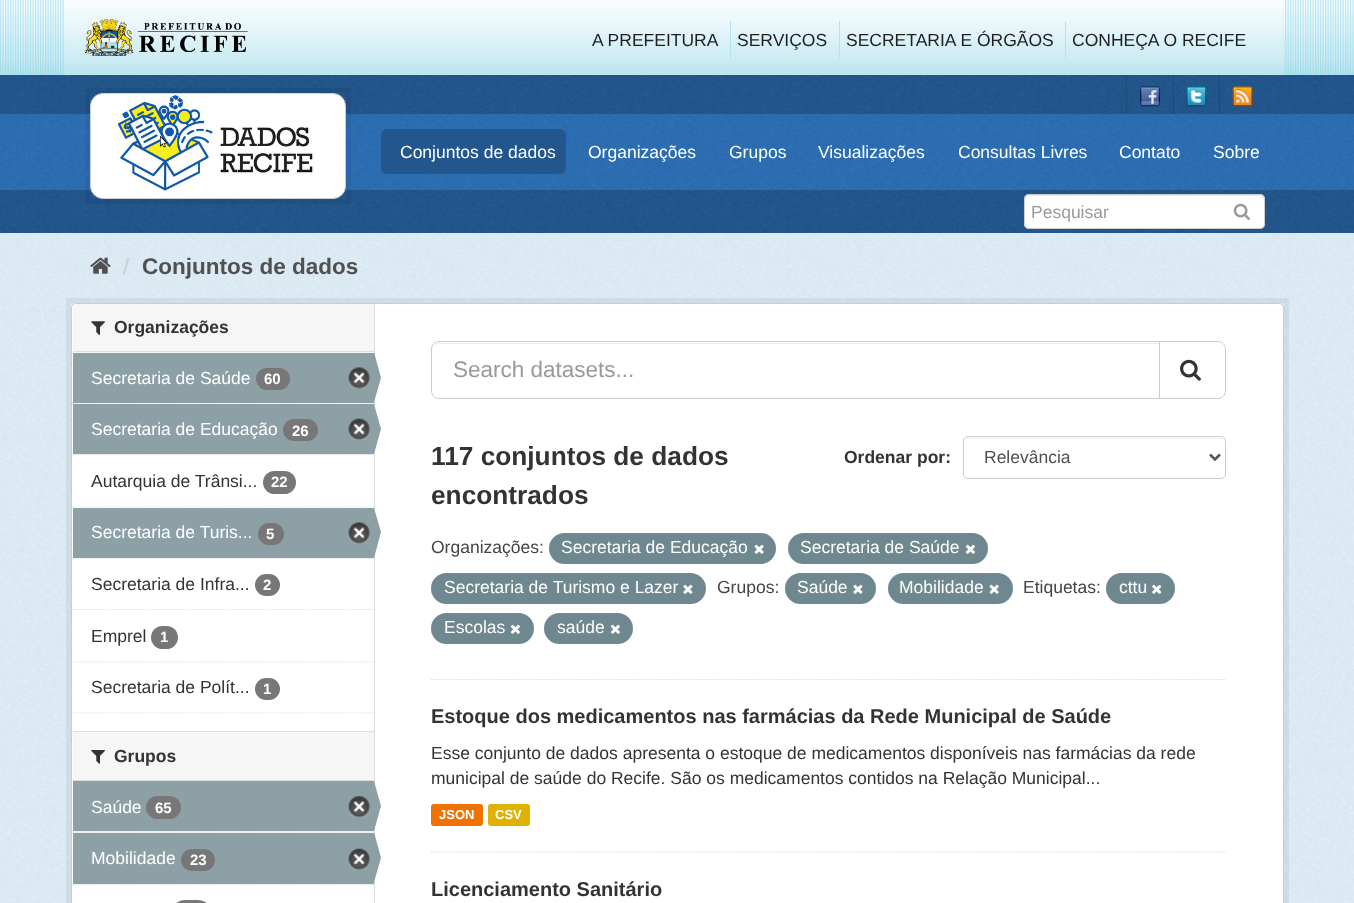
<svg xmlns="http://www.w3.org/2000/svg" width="1354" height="903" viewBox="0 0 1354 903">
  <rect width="100%" height="100%" fill="#fff"/>
  <image x="0" y="0" width="1354" height="75" href="img/1.png"/>
  <image x="65" y="0" width="1219" height="75" href="img/2.png"/>
  <image x="85" y="19" width="163" height="37" href="img/3.png"/>
  <path d="M730 21h1v38H730z" fill="#b2e4f0"/>
  <path d="M839 21h1v38H839z" fill="#b2e4f0"/>
  <path d="M1065 21h1v38H1065z" fill="#b2e4f0"/>
  <path d="M0 75h1354v39H0z" fill="#22568d"/>
  <image x="0" y="75" width="1354" height="38" href="img/4.png"/>
  <path d="M1126 75h1v39H1126z" fill="#1d4978"/>
  <image x="1140" y="86" width="20" height="21" href="img/5.png"/>
  <path d="M1173 75h1v39H1173z" fill="#1d4978"/>
  <image x="1186" y="86" width="21" height="21" href="img/6.png"/>
  <path d="M1219 75h1v39H1219z" fill="#1d4978"/>
  <image x="1232" y="86" width="21" height="21" href="img/7.png"/>
  <path d="M0 114h1354v76H0z" fill="#2c6fb6"/>
  <image x="0" y="114" width="1354" height="76" href="img/8.png"/>
  <path d="M0 190h1354v43H0z" fill="#22568d"/>
  <image x="0" y="190" width="1354" height="42" href="img/10.png"/>
  <path d="M87.5 90.5h261v111H87.5z" fill="none" stroke="#0000000d" stroke-width="5"/>
  <rect x="90.5" y="93.5" width="255" height="105" rx="12.5" fill="#fff" stroke="#ccc"/>
  <image x="109" y="93" width="211" height="99" href="img/9.png"/>
  <rect x="381" y="129" width="185" height="45" rx="6" fill="#22568d"/>
  <rect x="1024" y="194" width="241" height="35" rx="5" fill="#fff"/>
  <path d="M1029 196H1260C1262 196 1264 198 1264 200C1264 197 1263 195 1260 195H1029C1026 195 1025 197 1025 200C1025 198 1027 196 1029 196Z" fill="#ececec"/>
  <rect x="1024.5" y="194.5" width="240" height="34" rx="4.5" fill="none" stroke="#ccc"/>
  <image x="1233" y="203" width="17" height="17" href="img/11.png"/>
  <path d="M0 233h1354v670H0z" fill="#e0f0f9"/>
  <image x="0" y="233" width="1354" height="670" href="img/12.png"/>
  <image x="90" y="257" width="21" height="17" href="img/13.png"/>
  <path d="M68.5 300.5h1218v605H68.5z" fill="none" stroke="#0000000d" stroke-width="5"/>
  <rect x="71.5" y="303.5" width="1212" height="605" rx="4.5" fill="#fff" stroke="#ccc"/>
  <path d="M77 304H374V353H73V308C73 306 75 304 77 304Z" fill="#f6f6f6"/>
  <path d="M73 351h301v1H73z" fill="#ddd"/>
  <image x="91" y="321" width="14" height="14" href="img/14.png"/>
  <path d="M73 403h301v1H73z" fill="#f6f6f6"/>
  <path d="M72.5 403H374" fill="none" stroke="#ddd" stroke-width="1.2" stroke-dasharray="1.25 1.25"/>
  <path d="M73 353h301v50H73z" fill="#8ca0a6"/>
  <rect x="256" y="368" width="34" height="22" rx="11" fill="#777"/>
  <image x="348" y="367" width="22" height="22" href="img/15.png"/>
  <path d="M374 304h1v599H374z" fill="#ddd"/>
  <path d="M374 402V352L381 378Z" fill="#8ca0a6"/>
  <path d="M73 454h301v1H73z" fill="#f6f6f6"/>
  <path d="M72.5 454.5H374" fill="none" stroke="#ddd" stroke-width="1.2" stroke-dasharray="1.25 1.25"/>
  <path d="M73 404h301v50H73z" fill="#8ca0a6"/>
  <rect x="283" y="419" width="35" height="22" rx="11" fill="#777"/>
  <image x="348" y="418" width="22" height="22" href="img/16.png"/>
  <path d="M374 454V404L381 429Z" fill="#8ca0a6"/>
  <path d="M72.5 507H374" fill="none" stroke="#ddd" stroke-width="1.2" stroke-dasharray="1.25 1.25"/>
  <rect x="263" y="471" width="33" height="23" rx="11.5" fill="#777"/>
  <path d="M73 558h301v1H73z" fill="#f6f6f6"/>
  <path d="M72.5 558H374" fill="none" stroke="#ddd" stroke-width="1.2" stroke-dasharray="1.25 1.25"/>
  <path d="M73 508h301v50H73z" fill="#8ca0a6"/>
  <rect x="258" y="523" width="26" height="22" rx="11" fill="#777"/>
  <image x="348" y="522" width="22" height="22" href="img/15.png"/>
  <path d="M374 558V508L381 532Z" fill="#8ca0a6"/>
  <path d="M72.5 609.5H374" fill="none" stroke="#ddd" stroke-width="1.2" stroke-dasharray="1.25 1.25"/>
  <rect x="255" y="574" width="25" height="22" rx="11" fill="#777"/>
  <path d="M72.5 662H374" fill="none" stroke="#ddd" stroke-width="1.2" stroke-dasharray="1.25 1.25"/>
  <rect x="151" y="626" width="27" height="23" rx="11.5" fill="#777"/>
  <rect x="255" y="678" width="25" height="22" rx="11" fill="#777"/>
  <path d="M72.5 713H374" fill="none" stroke="#ddd" stroke-width="1.2" stroke-dasharray="1.25 1.25"/>
  <path d="M73 732h301v48H73z" fill="#f6f6f6"/>
  <path d="M73 731h301v1H73z" fill="#ddd"/>
  <path d="M73 780h301v1H73z" fill="#ddd"/>
  <image x="91" y="750" width="14" height="14" href="img/17.png"/>
  <path d="M73 831h301v2H73z" fill="#f6f6f6"/>
  <path d="M72.5 832H374" fill="none" stroke="#ddd" stroke-width="1.2" stroke-dasharray="1.25 1.25"/>
  <path d="M73 781h301v50H73z" fill="#8ca0a6"/>
  <rect x="146" y="796" width="35" height="23" rx="11.5" fill="#777"/>
  <image x="348" y="796" width="22" height="22" href="img/18.png"/>
  <path d="M374 831V781L381 806Z" fill="#8ca0a6"/>
  <path d="M73 884h301v1H73z" fill="#f6f6f6"/>
  <path d="M72.5 884.5H374" fill="none" stroke="#ddd" stroke-width="1.2" stroke-dasharray="1.25 1.25"/>
  <path d="M73 833h301v51H73z" fill="#8ca0a6"/>
  <rect x="181" y="849" width="34" height="22" rx="11" fill="#777"/>
  <image x="348" y="848" width="22" height="22" href="img/16.png"/>
  <path d="M374 882V832L381 858Z" fill="#8ca0a6"/>
  <rect x="174" y="900" width="35" height="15" rx="11.5" fill="#777"/>
  <path d="M431 679.5H1226" fill="none" stroke="#ddd" stroke-width="1.2" stroke-dasharray="1.25 1.25"/>
  <path d="M439 344H1159V343H439C437 343 435 344 434 346C435 345 437 344 439 344Z" fill="#ececec"/>
  <path d="M439 341.5H1159.5V398.5H439C435 398.5 431.5 395 431.5 391V349C431.5 345 435 341.5 439 341.5Z" fill="none" stroke="#ccc"/>
  <path d="M1159.5 341.5H1218C1222 341.5 1225.5 345 1225.5 349V391C1225.5 395 1222 398.5 1218 398.5H1159.5Z" fill="#fff" stroke="#ccc"/>
  <image x="1180" y="359" width="21" height="22" href="img/19.png"/>
  <path d="M968 439H1221C1223 439 1225 440 1225 442C1225 440 1223 438 1221 438H968C966 438 965 439 964 440C965 439 966 439 968 439Z" fill="#ececec"/>
  <rect x="963.5" y="436.5" width="262" height="42" rx="4.5" fill="none" stroke="#ccc"/>
  <path d="M1210 454.5L1215 459.5L1220 454.5" fill="none" stroke="#555" stroke-width="2.5"/>
  <rect x="549" y="533" width="227" height="31" rx="15.5" fill="#6f8890"/>
  <image x="754" y="544" width="10" height="10" href="img/20.png"/>
  <rect x="788" y="533" width="200" height="31" rx="15.5" fill="#6f8890"/>
  <image x="965" y="544" width="10" height="10" href="img/21.png"/>
  <rect x="431" y="573" width="275" height="31" rx="15.5" fill="#6f8890"/>
  <image x="683" y="584" width="10" height="10" href="img/22.png"/>
  <rect x="785" y="573" width="91" height="31" rx="15.5" fill="#6f8890"/>
  <image x="853" y="584" width="10" height="10" href="img/22.png"/>
  <rect x="888" y="573" width="125" height="31" rx="15.5" fill="#6f8890"/>
  <image x="989" y="584" width="10" height="10" href="img/20.png"/>
  <rect x="1106" y="573" width="69" height="31" rx="15.5" fill="#6f8890"/>
  <image x="1152" y="584" width="10" height="10" href="img/23.png"/>
  <rect x="431" y="613" width="103" height="31" rx="15.5" fill="#6f8890"/>
  <image x="510" y="624" width="10" height="10" href="img/21.png"/>
  <rect x="544" y="613" width="89" height="31" rx="15.5" fill="#6f8890"/>
  <image x="610" y="624" width="10" height="10" href="img/21.png"/>
  <path d="M431 852H1226" fill="none" stroke="#ddd" stroke-width="1.2" stroke-dasharray="1.25 1.25"/>
  <rect x="431" y="804" width="52" height="22" rx="3" fill="#ef7100"/>
  <rect x="488" y="804" width="42" height="22" rx="3" fill="#dfb100"/>
  <g font-family="Liberation Sans" font-size="17.5" fill="#1f1f1f">
    <text x="592" y="46">A PREFEITURA</text>
    <text x="737" y="46">SERVIÇOS</text>
    <text x="846" y="46">SECRETARIA E ÓRGÃOS</text>
    <text x="1072" y="46">CONHEÇA O RECIFE</text>
  </g>
  <g font-family="Liberation Sans" font-size="17.5" fill="#fff">
    <text x="400" y="158">Conjuntos de dados</text>
    <text x="588" y="158">Organizações</text>
    <text x="729" y="158">Grupos</text>
    <text x="818" y="158">Visualizações</text>
    <text x="958" y="158">Consultas Livres</text>
    <text x="1119" y="158">Contato</text>
    <text x="1213" y="158">Sobre</text>
  </g>
  <text x="1031" y="218" font-family="Liberation Sans" font-size="17.5" fill="#999">Pesquisar</text>
  <text x="123" y="274" font-family="Liberation Sans" font-size="22.5" fill="#ccc">/</text>
  <text x="142" y="274" font-family="Liberation Sans" font-size="22.5" font-weight="bold" fill="#505050">Conjuntos de dados</text>
  <text x="114" y="333" font-family="Liberation Sans" font-size="17.5" font-weight="bold" fill="#333">Organizações</text>
  <text x="91" y="384" font-family="Liberation Sans" font-size="17.5" fill="#fff">Secretaria de Saúde</text>
  <text x="264" y="384" font-family="Liberation Sans" font-size="15" font-weight="bold" fill="#fff">60</text>
  <text x="91" y="435" font-family="Liberation Sans" font-size="17.5" fill="#fff">Secretaria de Educação</text>
  <text x="292" y="436" font-family="Liberation Sans" font-size="15" font-weight="bold" fill="#fff">26</text>
  <text x="91" y="487" font-family="Liberation Sans" font-size="17.5" fill="#333">Autarquia de Trânsi...</text>
  <text x="271" y="487" font-family="Liberation Sans" font-size="15" font-weight="bold" fill="#fff">22</text>
  <text x="91" y="538" font-family="Liberation Sans" font-size="17.5" fill="#fff">Secretaria de Turis...</text>
  <text x="266" y="539" font-family="Liberation Sans" font-size="15" font-weight="bold" fill="#fff">5</text>
  <text x="91" y="590" font-family="Liberation Sans" font-size="17.5" fill="#333">Secretaria de Infra...</text>
  <text x="263" y="590" font-family="Liberation Sans" font-size="15" font-weight="bold" fill="#fff">2</text>
  <text x="91" y="642" font-family="Liberation Sans" font-size="17.5" fill="#333">Emprel</text>
  <text x="160" y="642" font-family="Liberation Sans" font-size="15" font-weight="bold" fill="#fff">1</text>
  <text x="91" y="693" font-family="Liberation Sans" font-size="17.5" fill="#333">Secretaria de Polít...</text>
  <text x="263" y="694" font-family="Liberation Sans" font-size="15" font-weight="bold" fill="#fff">1</text>
  <text x="114" y="762" font-family="Liberation Sans" font-size="17.5" font-weight="bold" fill="#333">Grupos</text>
  <text x="91" y="813" font-family="Liberation Sans" font-size="17.5" fill="#fff">Saúde</text>
  <text x="155" y="813" font-family="Liberation Sans" font-size="15" font-weight="bold" fill="#fff">65</text>
  <text x="91" y="864" font-family="Liberation Sans" font-size="17.5" fill="#fff">Mobilidade</text>
  <text x="190" y="865" font-family="Liberation Sans" font-size="15" font-weight="bold" fill="#fff">23</text>
  <text x="453" y="377" font-family="Liberation Sans" font-size="22.5" fill="#999">Search datasets...</text>
  <g font-family="Liberation Sans" font-size="26.25" font-weight="bold" fill="#333">
    <text x="431" y="465">117 conjuntos de dados</text>
    <text x="431" y="504">encontrados</text>
  </g>
  <text x="844" y="463" font-family="Liberation Sans" font-size="17.5" font-weight="bold" fill="#333">Ordenar por:</text>
  <text x="984" y="463" font-family="Liberation Sans" font-size="17.5" fill="#505050">Relevância</text>
  <text x="431" y="553" font-family="Liberation Sans" font-size="17.5" fill="#444">Organizações:</text>
  <g font-family="Liberation Sans" font-size="17.5" fill="#fff">
    <text x="561" y="553">Secretaria de Educação</text>
    <text x="800" y="553">Secretaria de Saúde</text>
    <text x="444" y="593">Secretaria de Turismo e Lazer</text>
  </g>
  <text x="717" y="593" font-family="Liberation Sans" font-size="17.5" fill="#444">Grupos:</text>
  <g font-family="Liberation Sans" font-size="17.5" fill="#fff">
    <text x="797" y="593">Saúde</text>
    <text x="899" y="593">Mobilidade</text>
  </g>
  <text x="1023" y="593" font-family="Liberation Sans" font-size="17.5" fill="#444">Etiquetas:</text>
  <g font-family="Liberation Sans" font-size="17.5" fill="#fff">
    <text x="1119" y="593">cttu</text>
    <text x="444" y="633">Escolas</text>
    <text x="557" y="633">saúde</text>
  </g>
  <text x="431" y="723" font-family="Liberation Sans" font-size="20" font-weight="bold" fill="#333">Estoque dos medicamentos nas farmácias da Rede Municipal de Saúde</text>
  <g font-family="Liberation Sans" font-size="17.5" fill="#333">
    <text x="431" y="759">Esse conjunto de dados apresenta o estoque de medicamentos disponíveis nas farmácias da rede</text>
    <text x="431" y="784">municipal de saúde do Recife. São os medicamentos contidos na Relação Municipal...</text>
  </g>
  <g font-family="Liberation Sans" font-size="13" font-weight="bold" fill="#fff">
    <text x="439" y="819">JSON</text>
    <text x="495" y="819">CSV</text>
  </g>
  <text x="431" y="896" font-family="Liberation Sans" font-size="20" font-weight="bold" fill="#333">Licenciamento Sanitário</text>
</svg>
